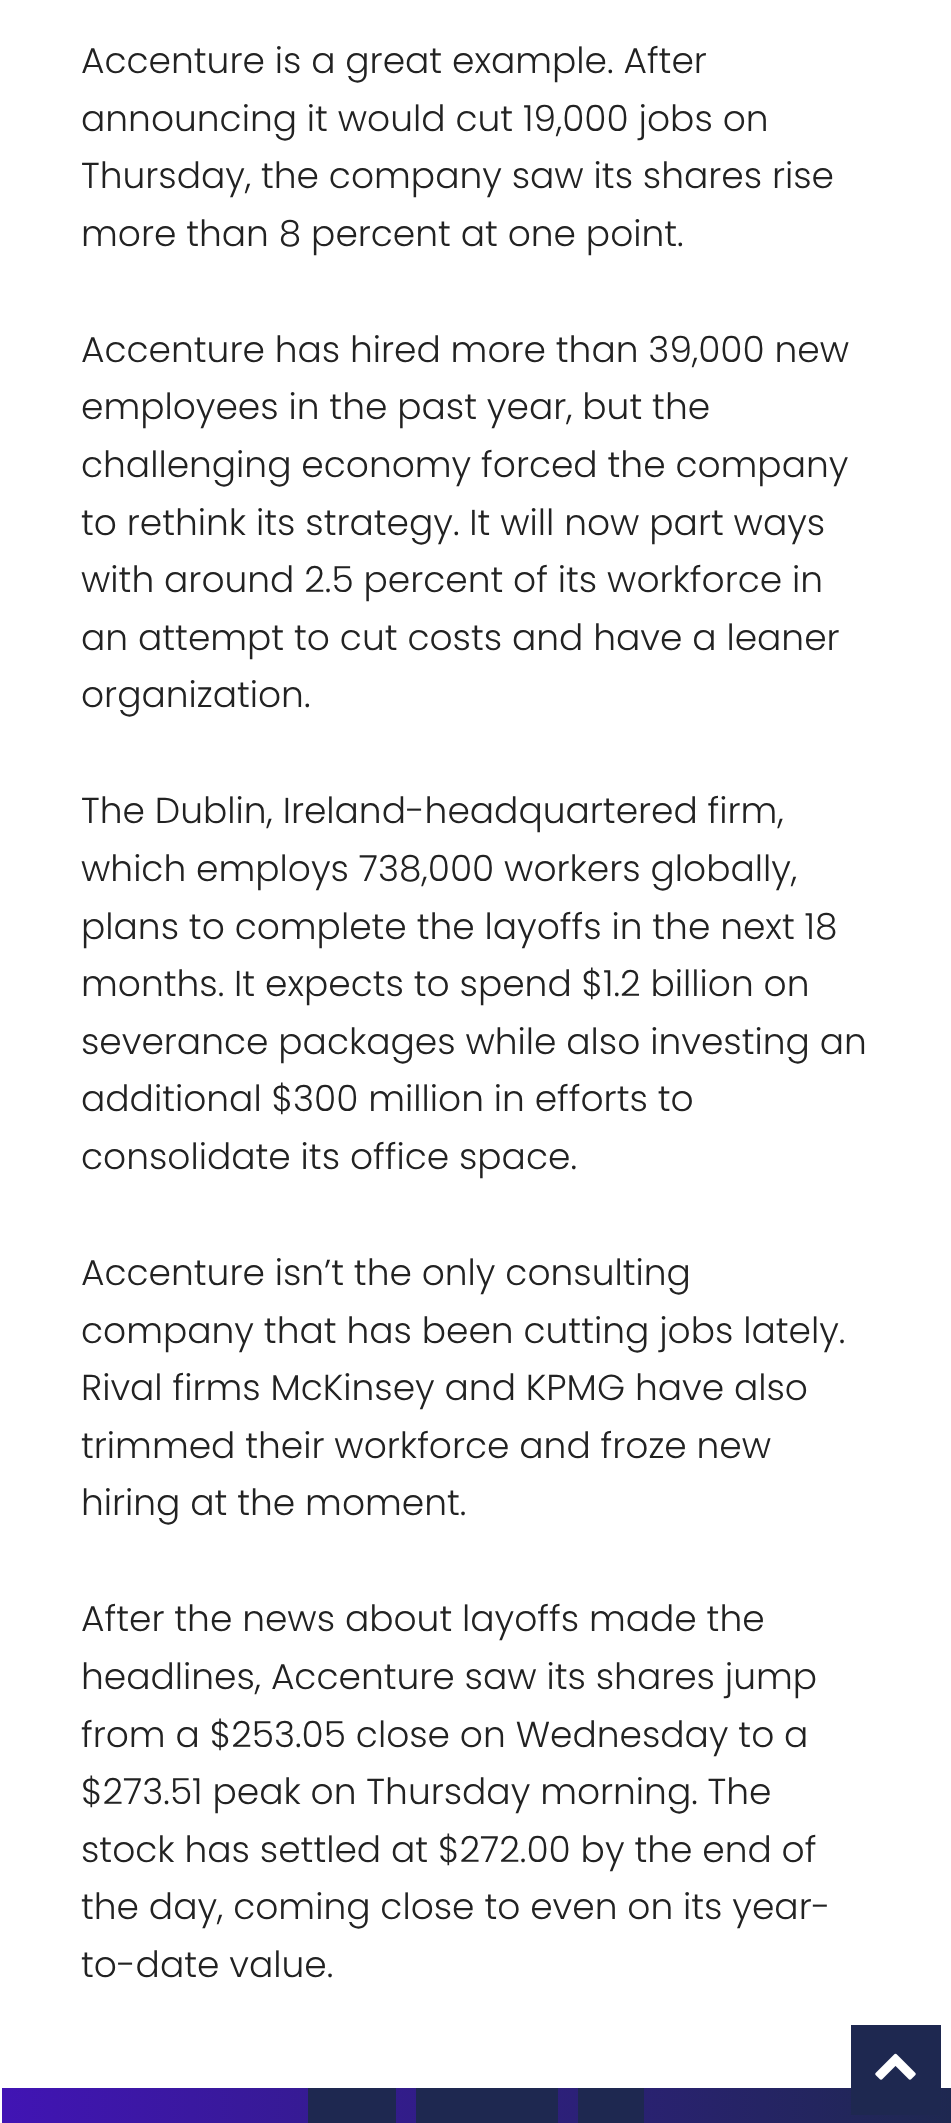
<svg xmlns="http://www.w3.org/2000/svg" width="951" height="2123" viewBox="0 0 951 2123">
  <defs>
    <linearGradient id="g1" gradientUnits="userSpaceOnUse" x1="1.1" y1="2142" x2="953" y2="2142"><stop offset="0" stop-color="#4114b4"/><stop offset="1" stop-color="#1e2850"/></linearGradient>
  </defs>
  <rect width="100%" height="100%" fill="#fff"/>
  <path d="M2 2088h949v35H2z" fill="url(#g1)"/>
  <path d="M308 2088h88v35H308z" fill="#1e2850"/>
  <path d="M416 2088h142v35H416z" fill="#1e2850"/>
  <path d="M578 2088h66v35H578z" fill="#1e2850"/>
  <path d="M851 2025h90v90H851z" fill="#1e2850"/>
  <image x="875" y="2053" width="41" height="27" href="img/1.png"/>
  <g font-family="Poppins" font-size="36" font-weight="300" fill="#222">
    <text x="81" y="73">Accenture is a great example. After</text>
    <text x="81" y="131">announcing it would cut 19,000 jobs on</text>
    <text x="81" y="188">Thursday, the company saw its shares rise</text>
    <text x="81" y="246">more than 8 percent at one point.</text>
    <text x="81" y="362">Accenture has hired more than 39,000 new</text>
    <text x="81" y="419">employees in the past year, but the</text>
    <text x="81" y="477">challenging economy forced the company</text>
    <text x="81" y="535">to rethink its strategy. It will now part ways</text>
    <text x="81" y="592">with around 2.5 percent of its workforce in</text>
    <text x="81" y="650">an attempt to cut costs and have a leaner</text>
    <text x="81" y="707">organization.</text>
    <text x="81" y="823">The Dublin, Ireland-headquartered firm,</text>
    <text x="81" y="881">which employs 738,000 workers globally,</text>
    <text x="81" y="939">plans to complete the layoffs in the next 18</text>
    <text x="81" y="996">months. It expects to spend $1.2 billion on</text>
    <text x="81" y="1054">severance packages while also investing an</text>
    <text x="81" y="1111">additional $300 million in efforts to</text>
    <text x="81" y="1169">consolidate its office space.</text>
    <text x="81" y="1285">Accenture isn’t the only consulting</text>
    <text x="81" y="1343">company that has been cutting jobs lately.</text>
    <text x="81" y="1400">Rival firms McKinsey and KPMG have also</text>
    <text x="81" y="1458">trimmed their workforce and froze new</text>
    <text x="81" y="1515">hiring at the moment.</text>
    <text x="81" y="1631">After the news about layoffs made the</text>
    <text x="81" y="1689">headlines, Accenture saw its shares jump</text>
    <text x="81" y="1747">from a $253.05 close on Wednesday to a</text>
    <text x="81" y="1804">$273.51 peak on Thursday morning. The</text>
    <text x="81" y="1862">stock has settled at $272.00 by the end of</text>
    <text x="81" y="1919">the day, coming close to even on its year-</text>
    <text x="81" y="1977">to-date value.</text>
  </g>
</svg>
